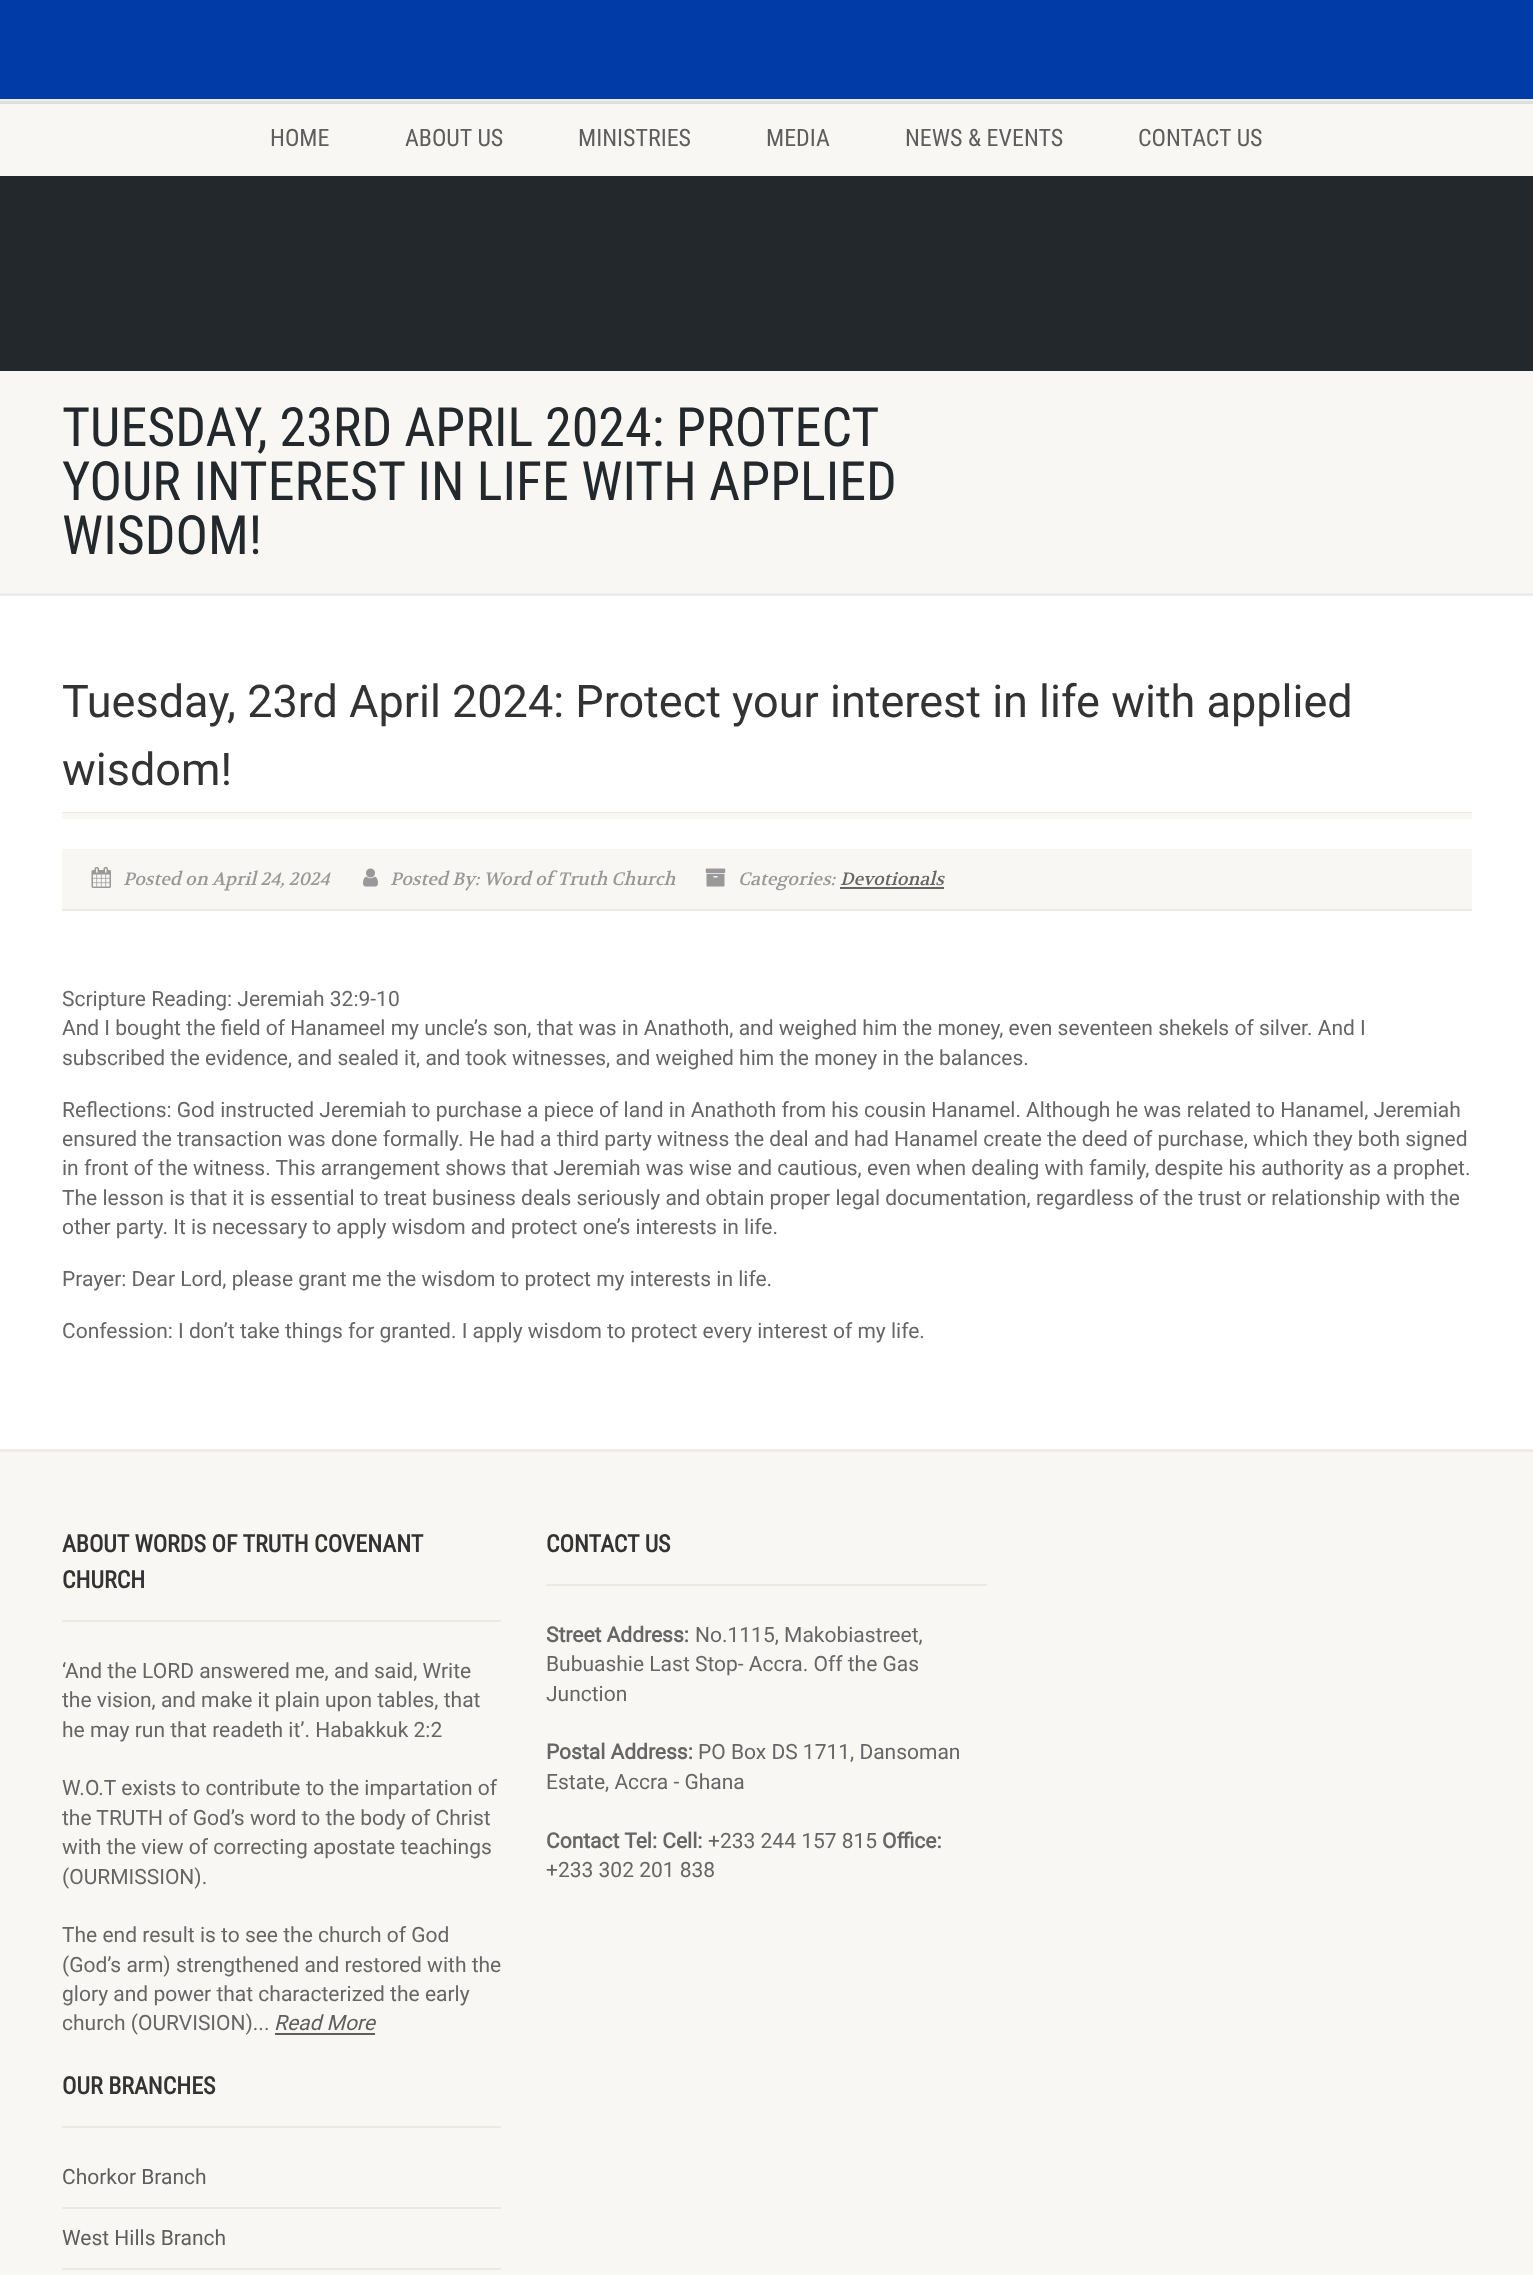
<svg xmlns="http://www.w3.org/2000/svg" width="1533" height="2275" viewBox="0 0 1533 2275">
  <rect width="100%" height="100%" fill="#fff"/>
  <path d="M0 0h1533v99H0z" fill="#003ba7"/>
  <path d="M0 99h1533v2H0z" fill="#eee"/>
  <path d="M0 104h1533v72H0z" fill="#f8f7f3"/>
  <path d="M0 101h1533v3H0z" fill="#dfdedb"/>
  <path d="M0 176h1533v195H0z" fill="#23282d"/>
  <path d="M0 593h1533v3H0z" fill="#ededed"/>
  <path d="M0 371h1533v222H0z" fill="#f8f7f3"/>
  <path d="M62 812h1410v1H62z" fill="#eceae4"/>
  <path d="M62 813h1410v6H62z" fill="#f8f7f3"/>
  <path d="M62 849h1410v60H62z" fill="#f8f7f3"/>
  <path d="M62 909h1410v2H62z" fill="#eceae4"/>
  <image x="91" y="867" width="20" height="21" href="img/1.png"/>
  <image x="363" y="868" width="15" height="19" href="img/2.png"/>
  <image x="705" y="868" width="21" height="19" href="img/3.png"/>
  <path d="M840 887h104v2H840z" fill="#666"/>
  <path d="M0 1449h1533v3H0z" fill="#ededed"/>
  <path d="M0 1452h1533v823H0z" fill="#f8f7f3"/>
  <path d="M62 1620h439v2H62z" fill="#eceae4"/>
  <path d="M275 2033h100v2H275z" fill="#5e5e5e"/>
  <path d="M62 2126h439v2H62z" fill="#eceae4"/>
  <path d="M62 2207h439v2H62z" fill="#eceae4"/>
  <path d="M62 2268h439v2H62z" fill="#eceae4"/>
  <path d="M546 1584h441v2H546z" fill="#eceae4"/>
  <g font-family="Roboto Condensed" font-size="24" fill="#5e5e5e">
    <text x="270" y="146">HOME</text>
    <text x="405" y="146">ABOUT US</text>
    <text x="578" y="146">MINISTRIES</text>
    <text x="766" y="146">MEDIA</text>
    <text x="905" y="146">NEWS &amp; EVENTS</text>
    <text x="1138" y="146">CONTACT US</text>
  </g>
  <g font-family="Roboto Condensed" font-size="54" fill="#23282d">
    <text x="62" y="446" word-spacing="-0.5">TUESDAY, 23RD APRIL 2024: PROTECT</text>
    <text x="62" y="500">YOUR INTEREST IN LIFE WITH APPLIED</text>
    <text x="62" y="554">WISDOM!</text>
  </g>
  <g font-family="Roboto" font-size="45" fill="#333">
    <text x="62" y="717">Tuesday, 23rd April 2024: Protect your interest in life with applied</text>
    <text x="62" y="785">wisdom!</text>
  </g>
  <g font-family="Volkhov" font-size="18" font-style="italic" fill="#999">
    <text x="123" y="885">Posted on April 24, 2024</text>
    <text x="390" y="885">Posted By: Word of Truth Church</text>
    <text x="738" y="885">Categories:</text>
  </g>
  <text x="840" y="885" font-family="Volkhov" font-size="18" font-style="italic" fill="#666">Devotionals</text>
  <g font-family="Roboto" font-size="21" fill="#666">
    <text x="62" y="1006">Scripture Reading: Jeremiah 32:9-10</text>
    <text x="62" y="1035">And I bought the field of Hanameel my uncle’s son, that was in Anathoth, and weighed him the money, even seventeen shekels of silver. And I</text>
    <text x="62" y="1065">subscribed the evidence, and sealed it, and took witnesses, and weighed him the money in the balances.</text>
    <text x="62" y="1117">Reflections: God instructed Jeremiah to purchase a piece of land in Anathoth from his cousin Hanamel. Although he was related to Hanamel, Jeremiah</text>
    <text x="62" y="1146">ensured the transaction was done formally. He had a third party witness the deal and had Hanamel create the deed of purchase, which they both signed</text>
    <text x="62" y="1175">in front of the witness. This arrangement shows that Jeremiah was wise and cautious, even when dealing with family, despite his authority as a prophet.</text>
    <text x="62" y="1205">The lesson is that it is essential to treat business deals seriously and obtain proper legal documentation, regardless of the trust or relationship with the</text>
    <text x="62" y="1234">other party. It is necessary to apply wisdom and protect one’s interests in life.</text>
    <text x="62" y="1286">Prayer: Dear Lord, please grant me the wisdom to protect my interests in life.</text>
    <text x="62" y="1338">Confession: I don’t take things for granted. I apply wisdom to protect every interest of my life.</text>
  </g>
  <g font-family="Roboto Condensed" font-size="24" font-weight="bold" fill="#333">
    <text x="62" y="1552">ABOUT WORDS OF TRUTH COVENANT</text>
    <text x="62" y="1588">CHURCH</text>
  </g>
  <g font-family="Roboto" font-size="21" fill="#666">
    <text x="62" y="1678">‘And the LORD answered me, and said, Write</text>
    <text x="62" y="1707">the vision, and make it plain upon tables, that</text>
    <text x="62" y="1737">he may run that readeth it’. Habakkuk 2:2</text>
    <text x="62" y="1795">W.O.T exists to contribute to the impartation of</text>
    <text x="62" y="1825">the TRUTH of God’s word to the body of Christ</text>
    <text x="62" y="1854">with the view of correcting apostate teachings</text>
    <text x="62" y="1884">(OURMISSION).</text>
    <text x="62" y="1942">The end result is to see the church of God</text>
    <text x="62" y="1972">(God’s arm) strengthened and restored with the</text>
    <text x="62" y="2001">glory and power that characterized the early</text>
    <text x="62" y="2030">church (OURVISION)...</text>
  </g>
  <text x="274" y="2030" font-family="Roboto" font-size="21" font-style="italic" fill="#5e5e5e">Read More</text>
  <text x="62" y="2094" font-family="Roboto Condensed" font-size="24" font-weight="bold" fill="#333">OUR BRANCHES</text>
  <g font-family="Roboto" font-size="21" fill="#5e5e5e">
    <text x="62" y="2184">Chorkor Branch</text>
    <text x="62" y="2245">West Hills Branch</text>
  </g>
  <text x="546" y="1552" font-family="Roboto Condensed" font-size="24" font-weight="bold" fill="#333">CONTACT US</text>
  <text x="546" y="1642" font-family="Roboto" font-size="21" font-weight="bold" fill="#666">Street Address:</text>
  <g font-family="Roboto" font-size="21" fill="#666">
    <text x="695" y="1642">No.1115, Makobiastreet,</text>
    <text x="546" y="1671">Bubuashie Last Stop- Accra. Off the Gas</text>
    <text x="546" y="1701">Junction</text>
  </g>
  <text x="546" y="1759" font-family="Roboto" font-size="21" font-weight="bold" fill="#666">Postal Address:</text>
  <g font-family="Roboto" font-size="21" fill="#666">
    <text x="698" y="1759">PO Box DS 1711, Dansoman</text>
    <text x="546" y="1789">Estate, Accra - Ghana</text>
  </g>
  <text x="546" y="1848" font-family="Roboto" font-size="21" font-weight="bold" fill="#666">Contact Tel: Cell:</text>
  <text x="708" y="1848" font-family="Roboto" font-size="21" fill="#666">+233 244 157 815</text>
  <text x="882" y="1848" font-family="Roboto" font-size="21" font-weight="bold" fill="#666">Office:</text>
  <text x="546" y="1877" font-family="Roboto" font-size="21" fill="#666">+233 302 201 838</text>
</svg>
